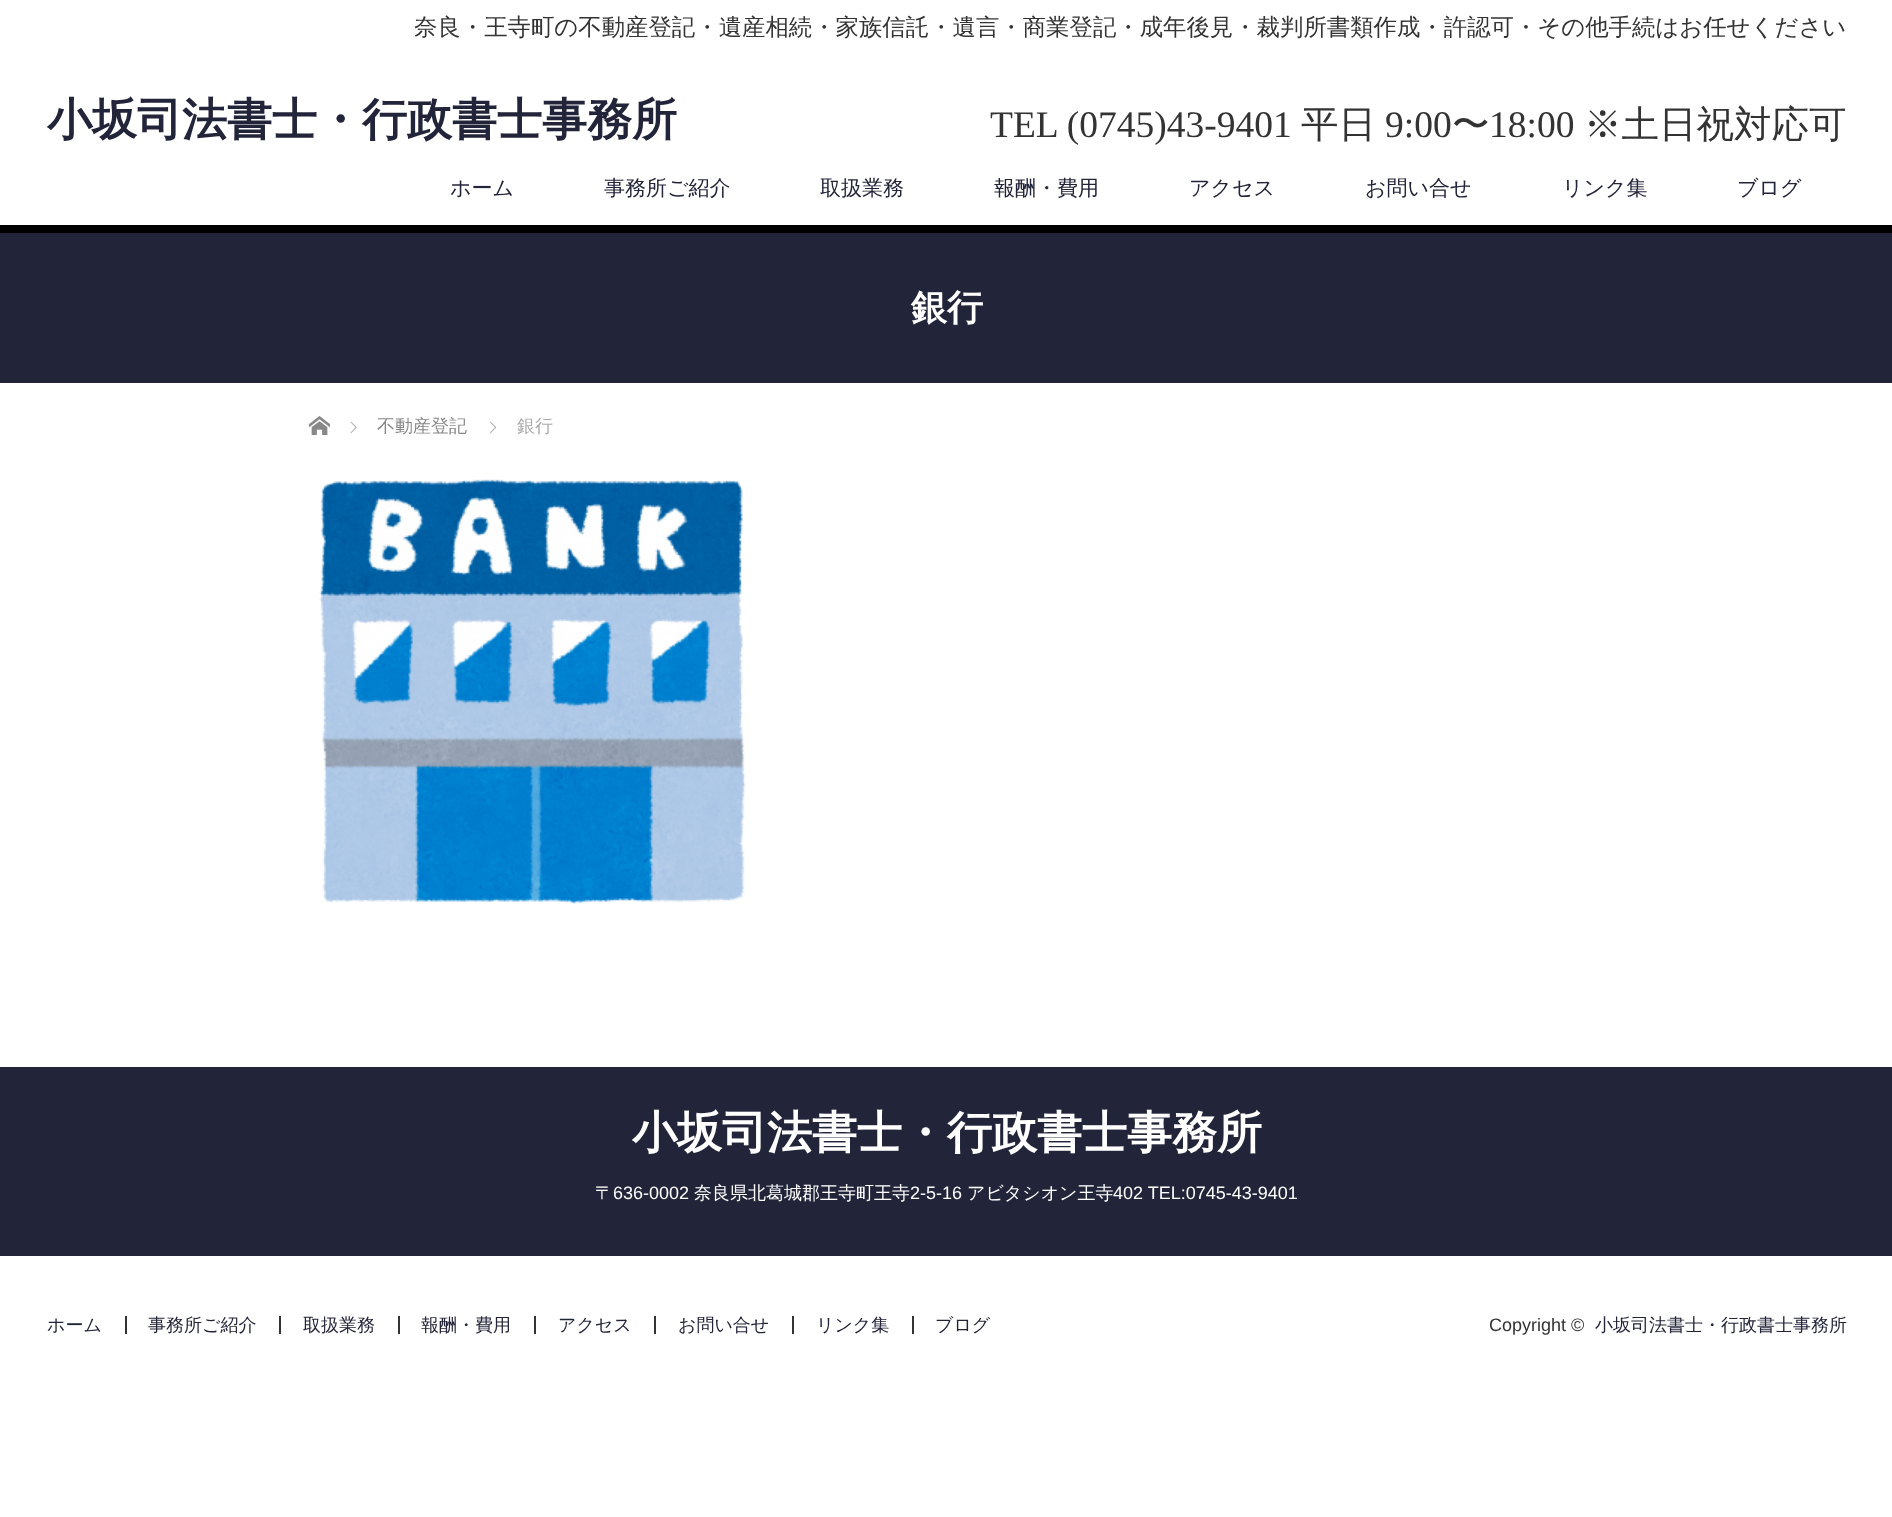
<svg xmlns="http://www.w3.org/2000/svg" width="1892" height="1517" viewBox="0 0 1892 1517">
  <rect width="100%" height="100%" fill="#fff"/>
  <path d="M0 225h1892v8H0z" fill="#000"/>
  <path d="M0 233h1892v150H0z" fill="#222439"/>
  <image x="309" y="416" width="21" height="19" href="img/1.png"/>
  <image x="350" y="421" width="7" height="13" href="img/2.png"/>
  <image x="490" y="421" width="7" height="13" href="img/3.png"/>
  <image x="319" y="479" width="427" height="425" href="img/4.png"/>
  <path d="M0 1067h1892v189H0z" fill="#222439"/>
  <path d="M125 1316h2v18H125z" fill="#333"/>
  <path d="M279 1316h2v18H279z" fill="#333"/>
  <path d="M398 1316h2v18H398z" fill="#333"/>
  <path d="M534 1316h2v18H534z" fill="#333"/>
  <path d="M654 1316h2v18H654z" fill="#333"/>
  <path d="M792 1316h2v18H792z" fill="#333"/>
  <path d="M912 1316h2v18H912z" fill="#333"/>
  <text x="414" y="35" font-family="WenQuanYi Zen Hei" font-size="23.4" font-weight="500" fill="#333">奈良・王寺町の不動産登記・遺産相続・家族信託・遺言・商業登記・成年後見・裁判所書類作成・許認可・その他手続はお任せください</text>
  <text x="47" y="135" font-family="WenQuanYi Zen Hei" font-size="45" font-weight="bold" fill="#222439">小坂司法書士・行政書士事務所</text>
  <text x="990" y="137" font-family="Liberation Serif" font-size="37.5" fill="#333">TEL (0745)43-9401</text>
  <text x="1301" y="137" font-family="WenQuanYi Zen Hei" font-size="37.5" font-weight="500" fill="#333">平日</text>
  <text x="1385" y="137" font-family="Liberation Serif" font-size="37.5" fill="#333">9:00</text>
  <text x="1452" y="137" font-family="WenQuanYi Zen Hei" font-size="37.5" font-weight="500" fill="#333">〜</text>
  <text x="1489" y="137" font-family="Liberation Serif" font-size="37.5" fill="#333">18:00</text>
  <text x="1584" y="137" font-family="WenQuanYi Zen Hei" font-size="37.5" font-weight="500" fill="#333">※土日祝対応可</text>
  <g font-family="WenQuanYi Zen Hei" font-size="21" font-weight="500" fill="#222439">
    <text x="450" y="195">ホーム</text>
    <text x="604" y="195">事務所ご紹介</text>
    <text x="820" y="195">取扱業務</text>
    <text x="994" y="195">報酬・費用</text>
    <text x="1189" y="195">アクセス</text>
    <text x="1365" y="195">お問い合せ</text>
    <text x="1562" y="195">リンク集</text>
    <text x="1737" y="195">ブログ</text>
  </g>
  <text x="911" y="320" font-family="WenQuanYi Zen Hei" font-size="36" font-weight="bold" fill="#fff">銀行</text>
  <text x="377" y="432" font-family="WenQuanYi Zen Hei" font-size="18" font-weight="500" fill="#888">不動産登記</text>
  <text x="517" y="432" font-family="WenQuanYi Zen Hei" font-size="18" font-weight="500" fill="#aaa">銀行</text>
  <text x="632" y="1148" font-family="WenQuanYi Zen Hei" font-size="45" font-weight="bold" fill="#fff">小坂司法書士・行政書士事務所</text>
  <text x="595" y="1199" font-family="WenQuanYi Zen Hei" font-size="18" font-weight="500" fill="#fff">〒</text>
  <text x="613" y="1199" font-family="Liberation Sans" font-size="18" fill="#fff">636-0002</text>
  <text x="694" y="1199" font-family="WenQuanYi Zen Hei" font-size="18" font-weight="500" fill="#fff">奈良県北葛城郡王寺町王寺</text>
  <text x="910" y="1199" font-family="Liberation Sans" font-size="18" fill="#fff">2‐5‐16</text>
  <text x="967" y="1199" font-family="WenQuanYi Zen Hei" font-size="18" font-weight="500" fill="#fff">アビタシオン王寺</text>
  <text x="1113" y="1199" font-family="Liberation Sans" font-size="18" fill="#fff">402 TEL:0745-43-9401</text>
  <g font-family="WenQuanYi Zen Hei" font-size="18" font-weight="500" fill="#222439">
    <text x="47" y="1331">ホーム</text>
    <text x="148" y="1331">事務所ご紹介</text>
    <text x="303" y="1331">取扱業務</text>
    <text x="421" y="1331">報酬・費用</text>
    <text x="558" y="1331">アクセス</text>
    <text x="678" y="1331">お問い合せ</text>
    <text x="816" y="1331">リンク集</text>
    <text x="935" y="1331">ブログ</text>
  </g>
  <text x="1489" y="1331" font-family="Liberation Sans" font-size="18" fill="#333">Copyright ©</text>
  <text x="1595" y="1331" font-family="WenQuanYi Zen Hei" font-size="18" font-weight="500" fill="#222439">小坂司法書士・行政書士事務所</text>
</svg>
